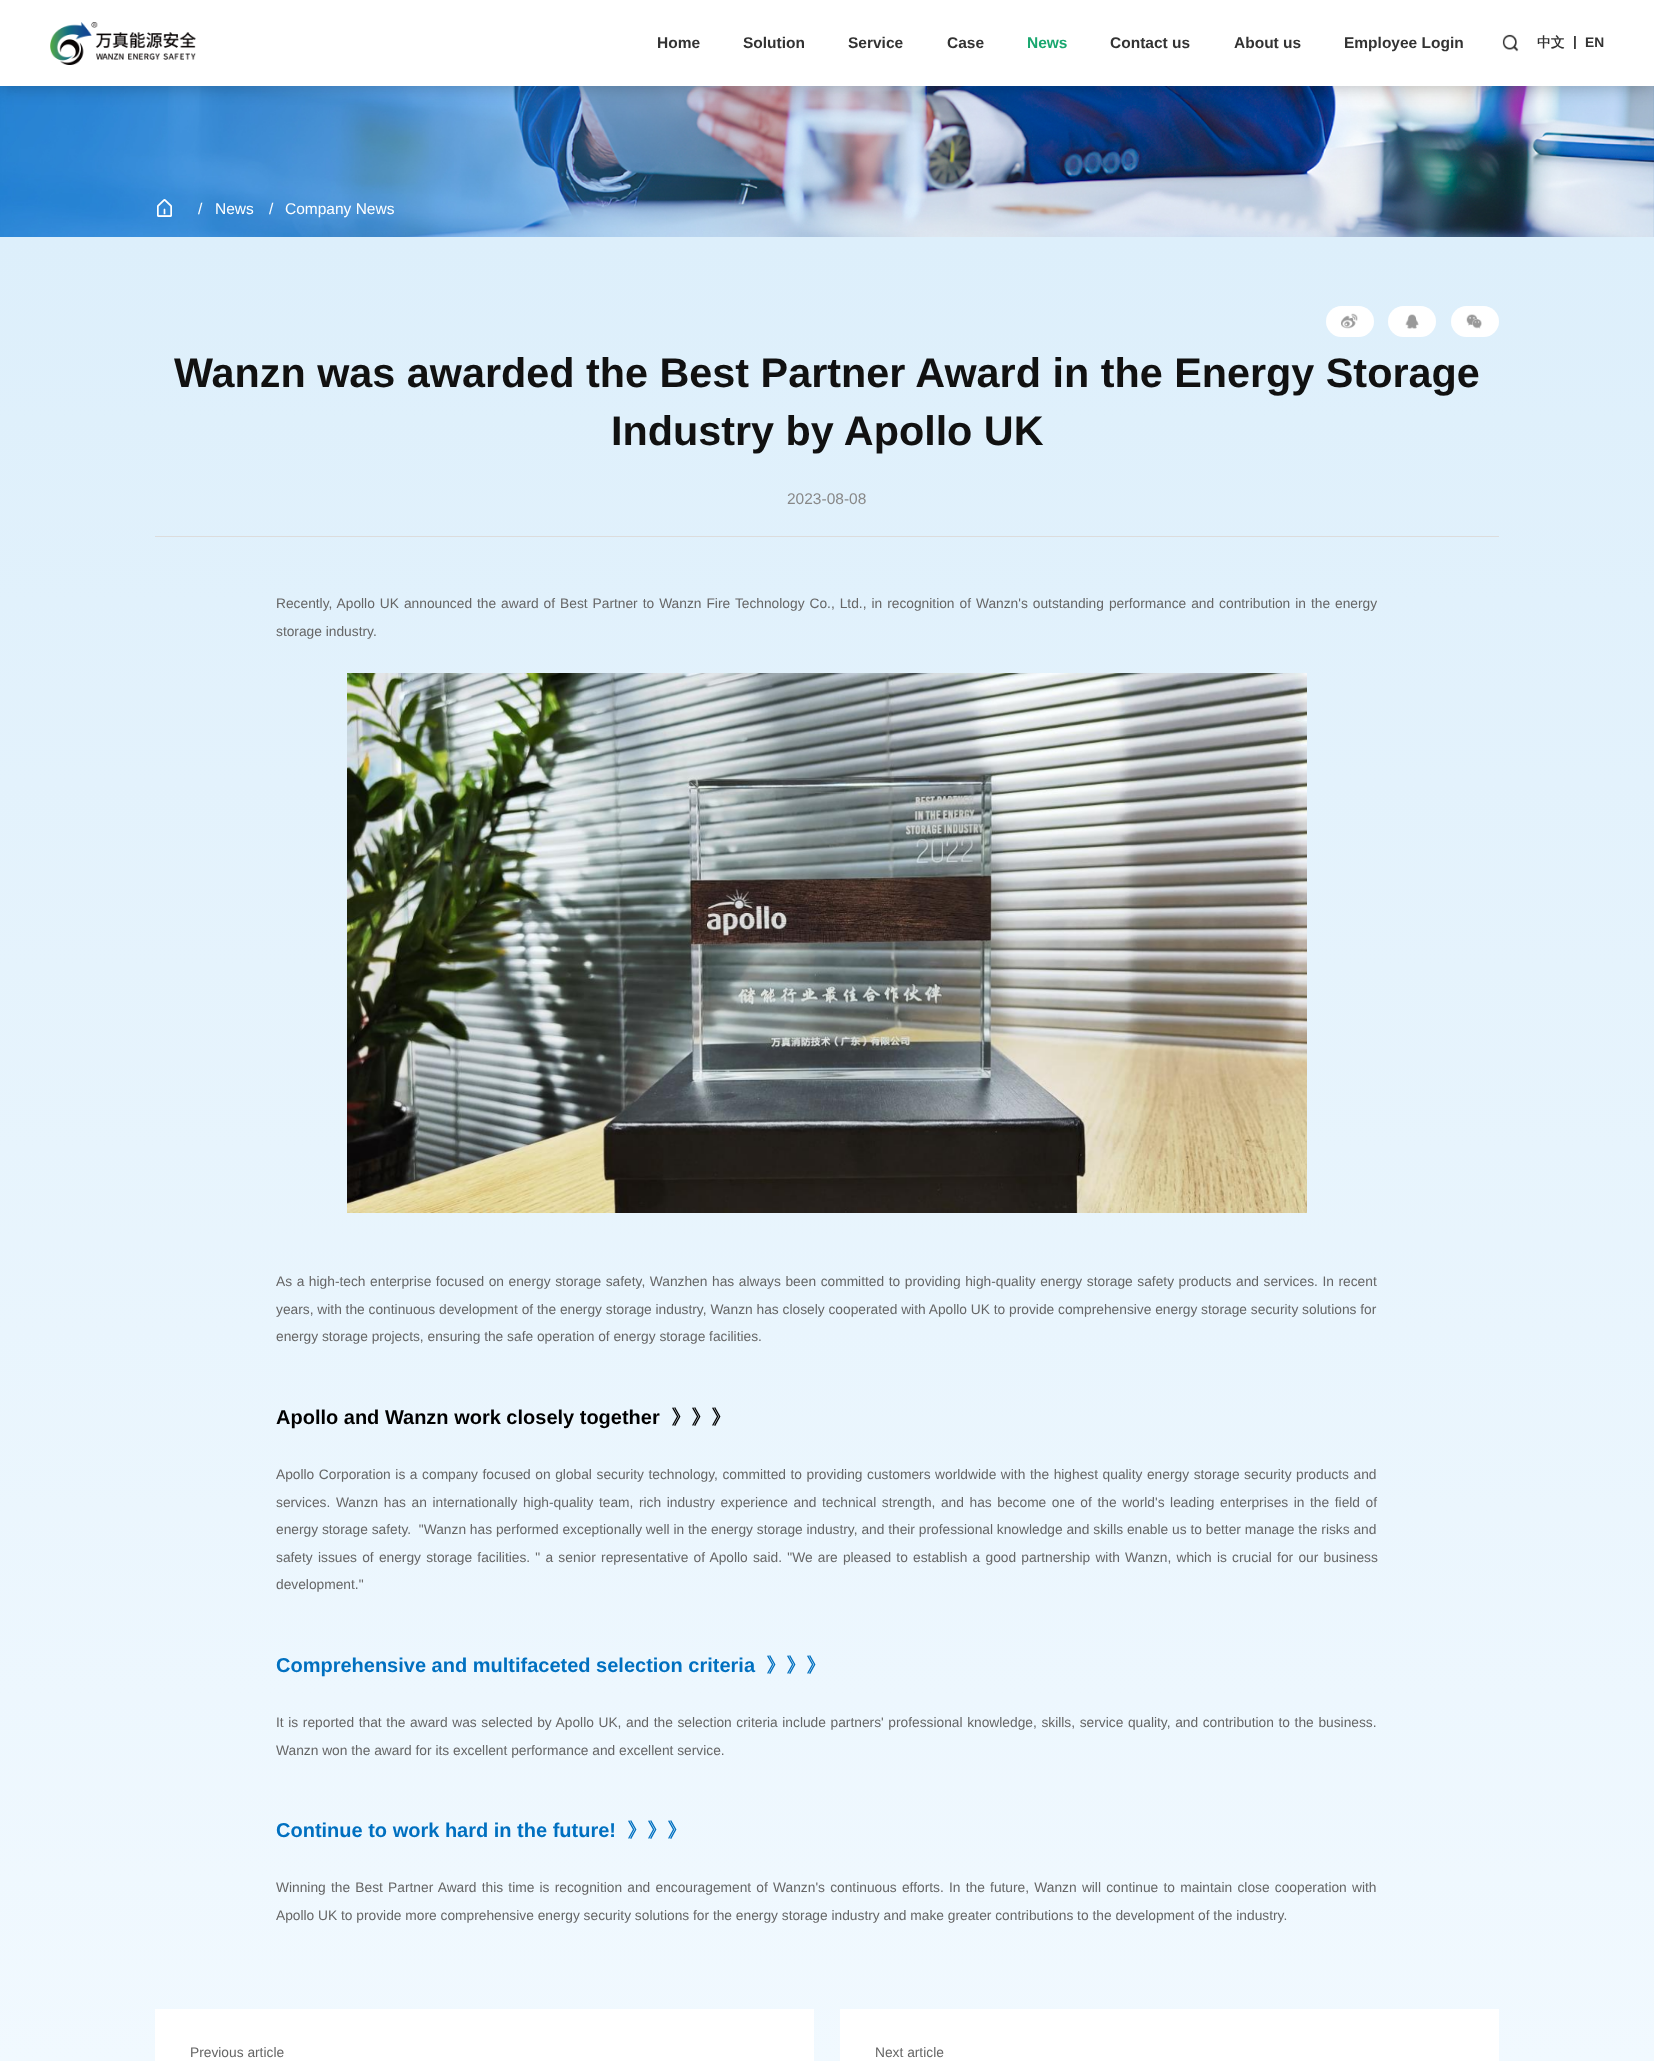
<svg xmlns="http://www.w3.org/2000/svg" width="1654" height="2061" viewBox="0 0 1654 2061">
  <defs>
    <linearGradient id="g1" gradientUnits="userSpaceOnUse" x1="827" y1="237" x2="827" y2="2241"><stop offset="0" stop-color="#ddeffb"/><stop offset="1" stop-color="#f3faff"/></linearGradient>
  </defs>
  <rect width="100%" height="100%" fill="#fff"/>
  <image x="0" y="86" width="1654" height="151" href="img/3.png"/>
  <path d="M0 0h1654v86H0z" fill="#00000045" filter="blur(9px)"/>
  <path d="M0 0h1654v86H0z" fill="#fff"/>
  <image x="50" y="22" width="146" height="43" href="img/1.png"/>
  <image x="1502" y="34" width="17" height="18" href="img/2.png"/>
  <image x="157" y="199" width="15" height="18" href="img/4.png"/>
  <path d="M0 237h1654v1824H0z" fill="url(#g1)"/>
  <rect x="1326" y="306" width="48" height="31" rx="15.5" fill="#fff"/>
  <image x="1341" y="313" width="17" height="16" href="img/5.png"/>
  <rect x="1388" y="306" width="48" height="31" rx="15.5" fill="#fff"/>
  <image x="1405" y="314" width="14" height="15" href="img/6.png"/>
  <rect x="1451" y="306" width="48" height="31" rx="15.5" fill="#fff"/>
  <image x="1466" y="314" width="16" height="15" href="img/7.png"/>
  <path d="M155 536h1344v1H155z" fill="#dcdcdc"/>
  <image x="347" y="673" width="960" height="540" href="img/8.png"/>
  <path d="M155 2009h659v52H155z" fill="#fff"/>
  <path d="M840 2009h659v52H840z" fill="#fff"/>
  <g font-family="Liberation Sans" font-size="15.5" font-weight="bold" fill="#333">
    <text x="657" y="48">Home</text>
    <text x="743" y="48">Solution</text>
    <text x="848" y="48">Service</text>
    <text x="947" y="48">Case</text>
  </g>
  <text x="1027" y="48" font-family="Liberation Sans" font-size="15.5" font-weight="bold" fill="#19a76f">News</text>
  <g font-family="Liberation Sans" font-size="15.5" font-weight="bold" fill="#333">
    <text x="1110" y="48">Contact us</text>
    <text x="1234" y="48">About us</text>
    <text x="1344" y="48">Employee Login</text>
  </g>
  <text x="1537" y="47" font-family="WenQuanYi Zen Hei" font-size="13.78" font-weight="bold" fill="#333">中文</text>
  <g font-family="Liberation Sans" font-size="13.78" font-weight="bold" fill="#333">
    <text x="1573" y="46">|</text>
    <text x="1585" y="47">EN</text>
  </g>
  <g font-family="Liberation Sans" font-size="15.5" fill="#fff">
    <text x="198" y="214">/</text>
    <text x="215" y="214">News</text>
    <text x="269" y="214">/</text>
    <text x="285" y="214">Company News</text>
  </g>
  <g font-family="Liberation Sans" font-size="41.35" font-weight="bold" fill="#111">
    <text x="174" y="387">Wanzn was awarded the Best Partner Award in the Energy Storage</text>
    <text x="611" y="445">Industry by Apollo UK</text>
  </g>
  <text x="787" y="504" font-family="Liberation Sans" font-size="15.5" fill="#888">2023-08-08</text>
  <g font-family="Liberation Sans" font-size="13.78" fill="#666">
    <text x="276" y="608" word-spacing="1.15">Recently, Apollo UK announced the award of Best Partner to Wanzn Fire Technology Co., Ltd., in recognition of Wanzn's outstanding performance and contribution in the energy</text>
    <text x="276" y="636">storage industry.</text>
    <text x="276" y="1286" word-spacing="0.75">As a high-tech enterprise focused on energy storage safety, Wanzhen has always been committed to providing high-quality energy storage safety products and services. In recent</text>
    <text x="276" y="1314">years, with the continuous development of the energy storage industry, Wanzn has closely cooperated with Apollo UK to provide comprehensive energy storage security solutions for</text>
    <text x="276" y="1341">energy storage projects, ensuring the safe operation of energy storage facilities.</text>
  </g>
  <text x="276" y="1424" font-family="Liberation Sans" font-size="20" font-weight="bold" fill="#000">Apollo and Wanzn work closely together</text>
  <text x="671" y="1424" font-family="WenQuanYi Zen Hei" font-size="20" font-weight="bold" fill="#000">》》》</text>
  <g font-family="Liberation Sans" font-size="13.78" fill="#666">
    <text x="276" y="1479" word-spacing="0.75">Apollo Corporation is a company focused on global security technology, committed to providing customers worldwide with the highest quality energy storage security products and</text>
    <text x="276" y="1507" word-spacing="1.75">services. Wanzn has an internationally high-quality team, rich industry experience and technical strength, and has become one of the world's leading enterprises in the field of</text>
    <text x="276" y="1534" xml:space="preserve">energy storage safety.  "Wanzn has performed exceptionally well in the energy storage industry, and their professional knowledge and skills enable us to better manage the risks and</text>
    <text x="276" y="1562" word-spacing="1.4">safety issues of energy storage facilities. " a senior representative of Apollo said. "We are pleased to establish a good partnership with Wanzn, which is crucial for our business</text>
    <text x="276" y="1589">development."</text>
  </g>
  <text x="276" y="1672" font-family="Liberation Sans" font-size="20" font-weight="bold" fill="#0070c0">Comprehensive and multifaceted selection criteria</text>
  <text x="766" y="1672" font-family="WenQuanYi Zen Hei" font-size="20" font-weight="bold" fill="#0070c0">》》》</text>
  <g font-family="Liberation Sans" font-size="13.78" fill="#666">
    <text x="276" y="1727" word-spacing="0.8">It is reported that the award was selected by Apollo UK, and the selection criteria include partners' professional knowledge, skills, service quality, and contribution to the business.</text>
    <text x="276" y="1755">Wanzn won the award for its excellent performance and excellent service.</text>
  </g>
  <text x="276" y="1837" font-family="Liberation Sans" font-size="20" font-weight="bold" fill="#0070c0">Continue to work hard in the future!</text>
  <text x="627" y="1837" font-family="WenQuanYi Zen Hei" font-size="20" font-weight="bold" fill="#0070c0">》》》</text>
  <g font-family="Liberation Sans" font-size="13.78" fill="#666">
    <text x="276" y="1892" word-spacing="1.4">Winning the Best Partner Award this time is recognition and encouragement of Wanzn's continuous efforts. In the future, Wanzn will continue to maintain close cooperation with</text>
    <text x="276" y="1920">Apollo UK to provide more comprehensive energy security solutions for the energy storage industry and make greater contributions to the development of the industry.</text>
    <text x="190" y="2057">Previous article</text>
    <text x="875" y="2057">Next article</text>
  </g>
</svg>
